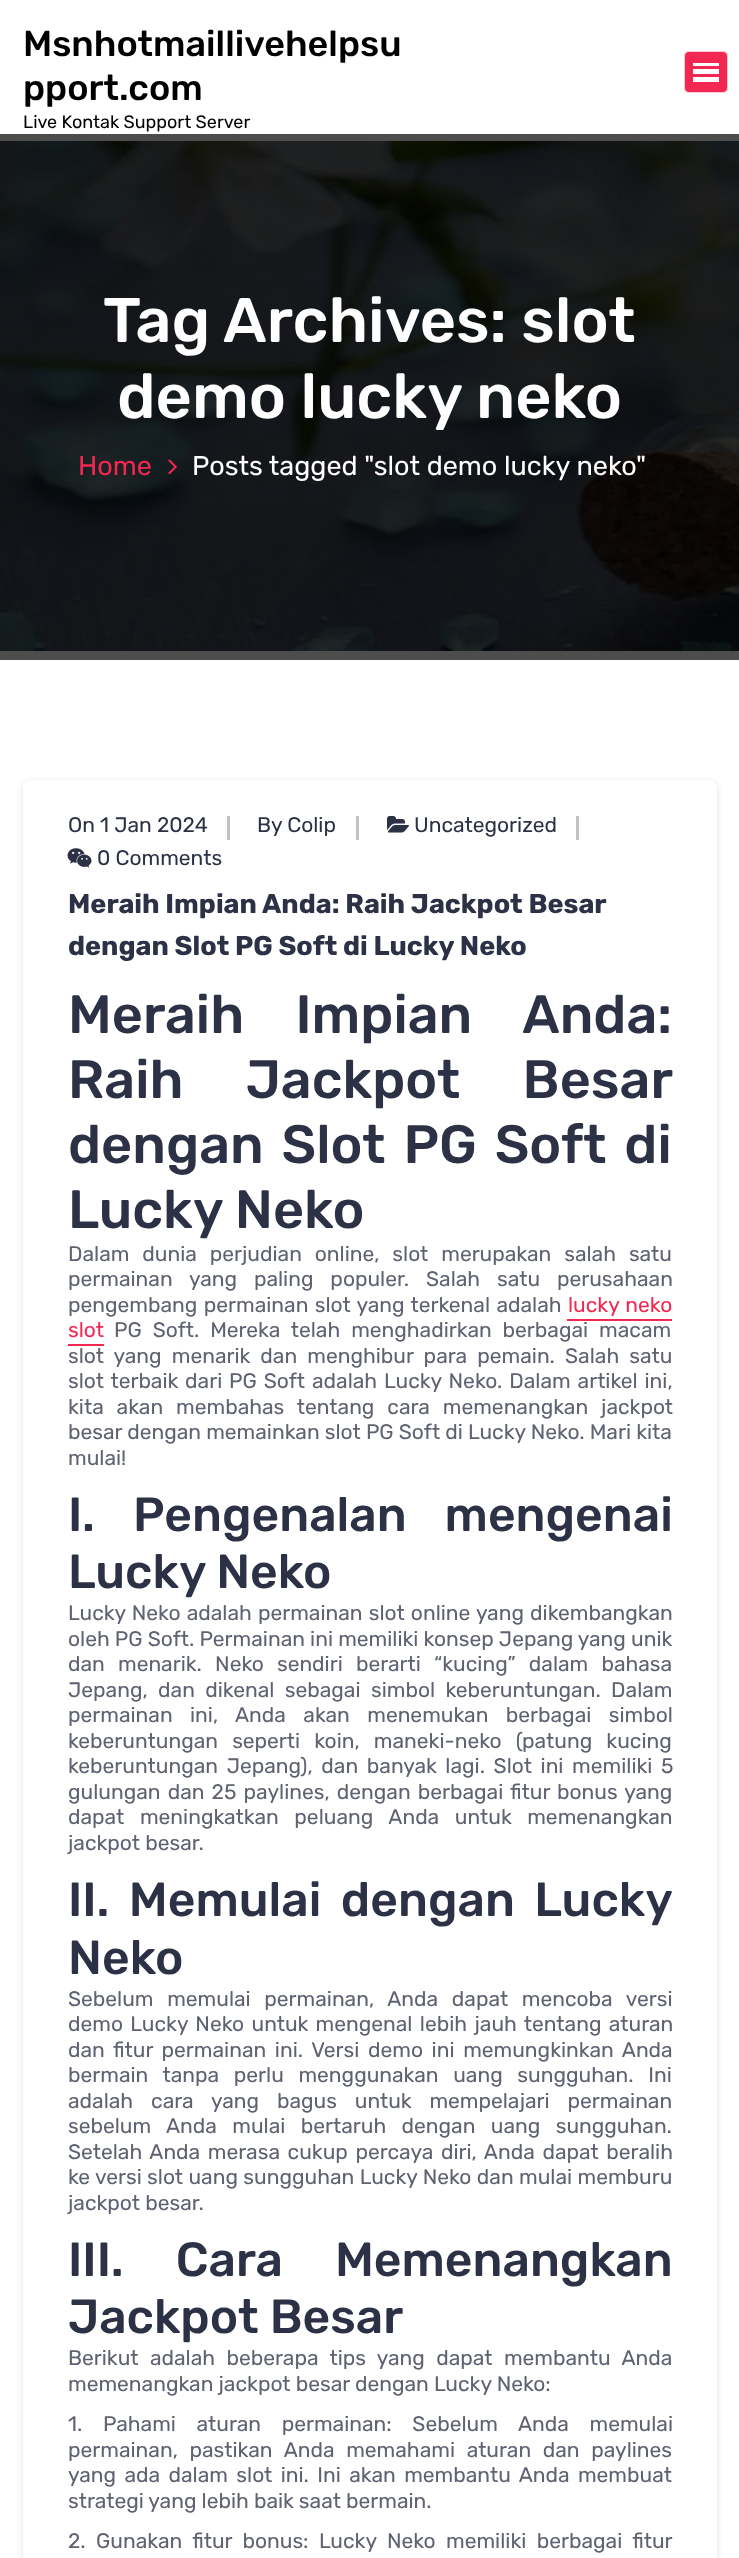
<svg xmlns="http://www.w3.org/2000/svg" width="739" height="2558" viewBox="0 0 739 2558">
  <defs>
    <clipPath id="clip1"><path d="M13 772H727V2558H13ZM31 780H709C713.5 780 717 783.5 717 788V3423C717 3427.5 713.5 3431 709 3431H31C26.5 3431 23 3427.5 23 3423V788C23 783.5 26.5 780 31 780Z" clip-rule="evenodd"/></clipPath>
  </defs>
  <rect width="100%" height="100%" fill="#fff"/>
  <path d="M0 134h739v526H0z" fill="#4d4d4d"/>
  <rect x="684.5" y="51.5" width="43" height="41" rx="4.5" fill="#f22853" stroke="#fff"/>
  <rect x="684" y="51" width="44" height="42" rx="5" fill="#f2285380"/>
  <rect x="684.5" y="51.5" width="43" height="41" rx="4.5" fill="none" stroke="#ffffff80"/>
  <path d="M693 63h26v3H693z" fill="#fff"/>
  <path d="M693 69h26v5H693z" fill="#fff"/>
  <path d="M693 77h26v5H693z" fill="#fff"/>
  <image x="0" y="141" width="739" height="510" href="img/1.png"/>
  <image x="168" y="459" width="9" height="16" href="img/2.png"/>
  <g clip-path="url(#clip1)">
    <rect x="23" y="782" width="694" height="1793" rx="8" fill="#2c313b26" filter="blur(3px)"/>
  </g>
  <path d="M227 816h3v24H227z" fill="#c2c2c2"/>
  <path d="M356 816h3v24H356z" fill="#c2c2c2"/>
  <image x="387" y="816" width="22" height="17" href="img/3.png"/>
  <path d="M576 816h3v24H576z" fill="#c2c2c2"/>
  <image x="67" y="848" width="25" height="20" href="img/4.png"/>
  <path d="M567 1319h105v2H567z" fill="#f22853"/>
  <path d="M68 1344h36v2H68z" fill="#f22853"/>
  <g font-family="Rubik" font-size="36" font-weight="500" fill="#000">
    <text x="23" y="56">Msnhotmaillivehelpsu</text>
    <text x="23" y="100">pport.com</text>
  </g>
  <text x="23" y="128" font-family="Rubik" font-size="18" fill="#000">Live Kontak Support Server</text>
  <g font-family="Rubik" font-size="63" font-weight="500" fill="#fff">
    <text x="103" y="342">Tag Archives: slot</text>
    <text x="117" y="418">demo lucky neko</text>
  </g>
  <text x="78" y="475" font-family="Rubik" font-size="27" fill="#f22853">Home</text>
  <text x="192" y="475" font-family="Rubik" font-size="27" fill="#fff">Posts tagged "slot demo lucky neko"</text>
  <g font-family="Rubik" font-size="21" fill="#2c3145">
    <text x="68" y="832">On 1 Jan 2024</text>
    <text x="257" y="832">By Colip</text>
    <text x="414" y="832">Uncategorized</text>
    <text x="97" y="865">0 Comments</text>
  </g>
  <g font-family="Rubik" font-size="27" font-weight="bold" fill="#2c3145">
    <text x="68" y="913">Meraih Impian Anda: Raih Jackpot Besar</text>
    <text x="68" y="955">dengan Slot PG Soft di Lucky Neko</text>
  </g>
  <g font-family="Rubik" font-size="54" font-weight="500" fill="#2c3145">
    <text x="68" y="1033" word-spacing="39">Meraih Impian Anda:</text>
    <text x="68" y="1098" word-spacing="50">Raih Jackpot Besar</text>
    <text x="68" y="1163" word-spacing="5.5">dengan Slot PG Soft di</text>
    <text x="68" y="1228">Lucky Neko</text>
  </g>
  <g font-family="Rubik" font-size="21" fill="#5e6271">
    <text x="68" y="1261" word-spacing="7.75">Dalam dunia perjudian online, slot merupakan salah satu</text>
    <text x="68" y="1286" word-spacing="11.75">permainan yang paling populer. Salah satu perusahaan</text>
    <text x="68" y="1312" word-spacing="1.25">pengembang permainan slot yang terkenal adalah</text>
  </g>
  <g font-family="Rubik" font-size="21" fill="#f22853">
    <text x="568" y="1312" word-spacing="1">lucky neko</text>
    <text x="68" y="1337">slot</text>
  </g>
  <g font-family="Rubik" font-size="21" fill="#5e6271">
    <text x="114" y="1337" word-spacing="5.75">PG Soft. Mereka telah menghadirkan berbagai macam</text>
    <text x="68" y="1363" word-spacing="5">slot yang menarik dan menghibur para pemain. Salah satu</text>
    <text x="68" y="1388" word-spacing="1.75">slot terbaik dari PG Soft adalah Lucky Neko. Dalam artikel ini,</text>
    <text x="68" y="1414" word-spacing="7.75">kita akan membahas tentang cara memenangkan jackpot</text>
    <text x="68" y="1439">besar dengan memainkan slot PG Soft di Lucky Neko. Mari kita</text>
    <text x="68" y="1465">mulai!</text>
  </g>
  <g font-family="Rubik" font-size="48" font-weight="500" fill="#2c3145">
    <text x="68" y="1531" word-spacing="27">I. Pengenalan mengenai</text>
    <text x="68" y="1588">Lucky Neko</text>
  </g>
  <g font-family="Rubik" font-size="21" fill="#5e6271">
    <text x="68" y="1620" word-spacing="1">Lucky Neko adalah permainan slot online yang dikembangkan</text>
    <text x="68" y="1646">oleh PG Soft. Permainan ini memiliki konsep Jepang yang unik</text>
    <text x="68" y="1671" word-spacing="8">dan menarik. Neko sendiri berarti “kucing” dalam bahasa</text>
    <text x="68" y="1697" word-spacing="5.25">Jepang, dan dikenal sebagai simbol keberuntungan. Dalam</text>
    <text x="68" y="1722" word-spacing="12.25">permainan ini, Anda akan menemukan berbagai simbol</text>
    <text x="68" y="1748" word-spacing="9">keberuntungan seperti koin, maneki-neko (patung kucing</text>
    <text x="68" y="1773" word-spacing="3.5">keberuntungan Jepang), dan banyak lagi. Slot ini memiliki 5</text>
    <text x="68" y="1799" word-spacing="2">gulungan dan 25 paylines, dengan berbagai fitur bonus yang</text>
    <text x="68" y="1824" word-spacing="10.5">dapat meningkatkan peluang Anda untuk memenangkan</text>
    <text x="68" y="1850">jackpot besar.</text>
  </g>
  <g font-family="Rubik" font-size="48" font-weight="500" fill="#2c3145">
    <text x="68" y="1916" word-spacing="8.5">II. Memulai dengan Lucky</text>
    <text x="68" y="1974">Neko</text>
  </g>
  <g font-family="Rubik" font-size="21" fill="#5e6271">
    <text x="68" y="2006" word-spacing="8.5">Sebelum memulai permainan, Anda dapat mencoba versi</text>
    <text x="68" y="2031" word-spacing="2.25">demo Lucky Neko untuk mengenal lebih jauh tentang aturan</text>
    <text x="68" y="2057" word-spacing="3.5">dan fitur permainan ini. Versi demo ini memungkinkan Anda</text>
    <text x="68" y="2082" word-spacing="9.5">bermain tanpa perlu menggunakan uang sungguhan. Ini</text>
    <text x="68" y="2108" word-spacing="12.75">adalah cara yang bagus untuk mempelajari permainan</text>
    <text x="68" y="2133" word-spacing="10.25">sebelum Anda mulai bertaruh dengan uang sungguhan.</text>
    <text x="68" y="2159" word-spacing="2.5">Setelah Anda merasa cukup percaya diri, Anda dapat beralih</text>
    <text x="68" y="2184" word-spacing="0.25">ke versi slot uang sungguhan Lucky Neko dan mulai memburu</text>
    <text x="68" y="2210">jackpot besar.</text>
  </g>
  <g font-family="Rubik" font-size="48" font-weight="500" fill="#2c3145">
    <text x="68" y="2276" word-spacing="41">III. Cara Memenangkan</text>
    <text x="68" y="2333">Jackpot Besar</text>
  </g>
  <g font-family="Rubik" font-size="21" fill="#5e6271">
    <text x="68" y="2365" word-spacing="6.25">Berikut adalah beberapa tips yang dapat membantu Anda</text>
    <text x="68" y="2391">memenangkan jackpot besar dengan Lucky Neko:</text>
    <text x="68" y="2431" word-spacing="15.5">1. Pahami aturan permainan: Sebelum Anda memulai</text>
    <text x="68" y="2457" word-spacing="6.5">permainan, pastikan Anda memahami aturan dan paylines</text>
    <text x="68" y="2482" word-spacing="3.25">yang ada dalam slot ini. Ini akan membantu Anda membuat</text>
    <text x="68" y="2508">strategi yang lebih baik saat bermain.</text>
    <text x="68" y="2548" word-spacing="5.25">2. Gunakan fitur bonus: Lucky Neko memiliki berbagai fitur</text>
  </g>
</svg>
